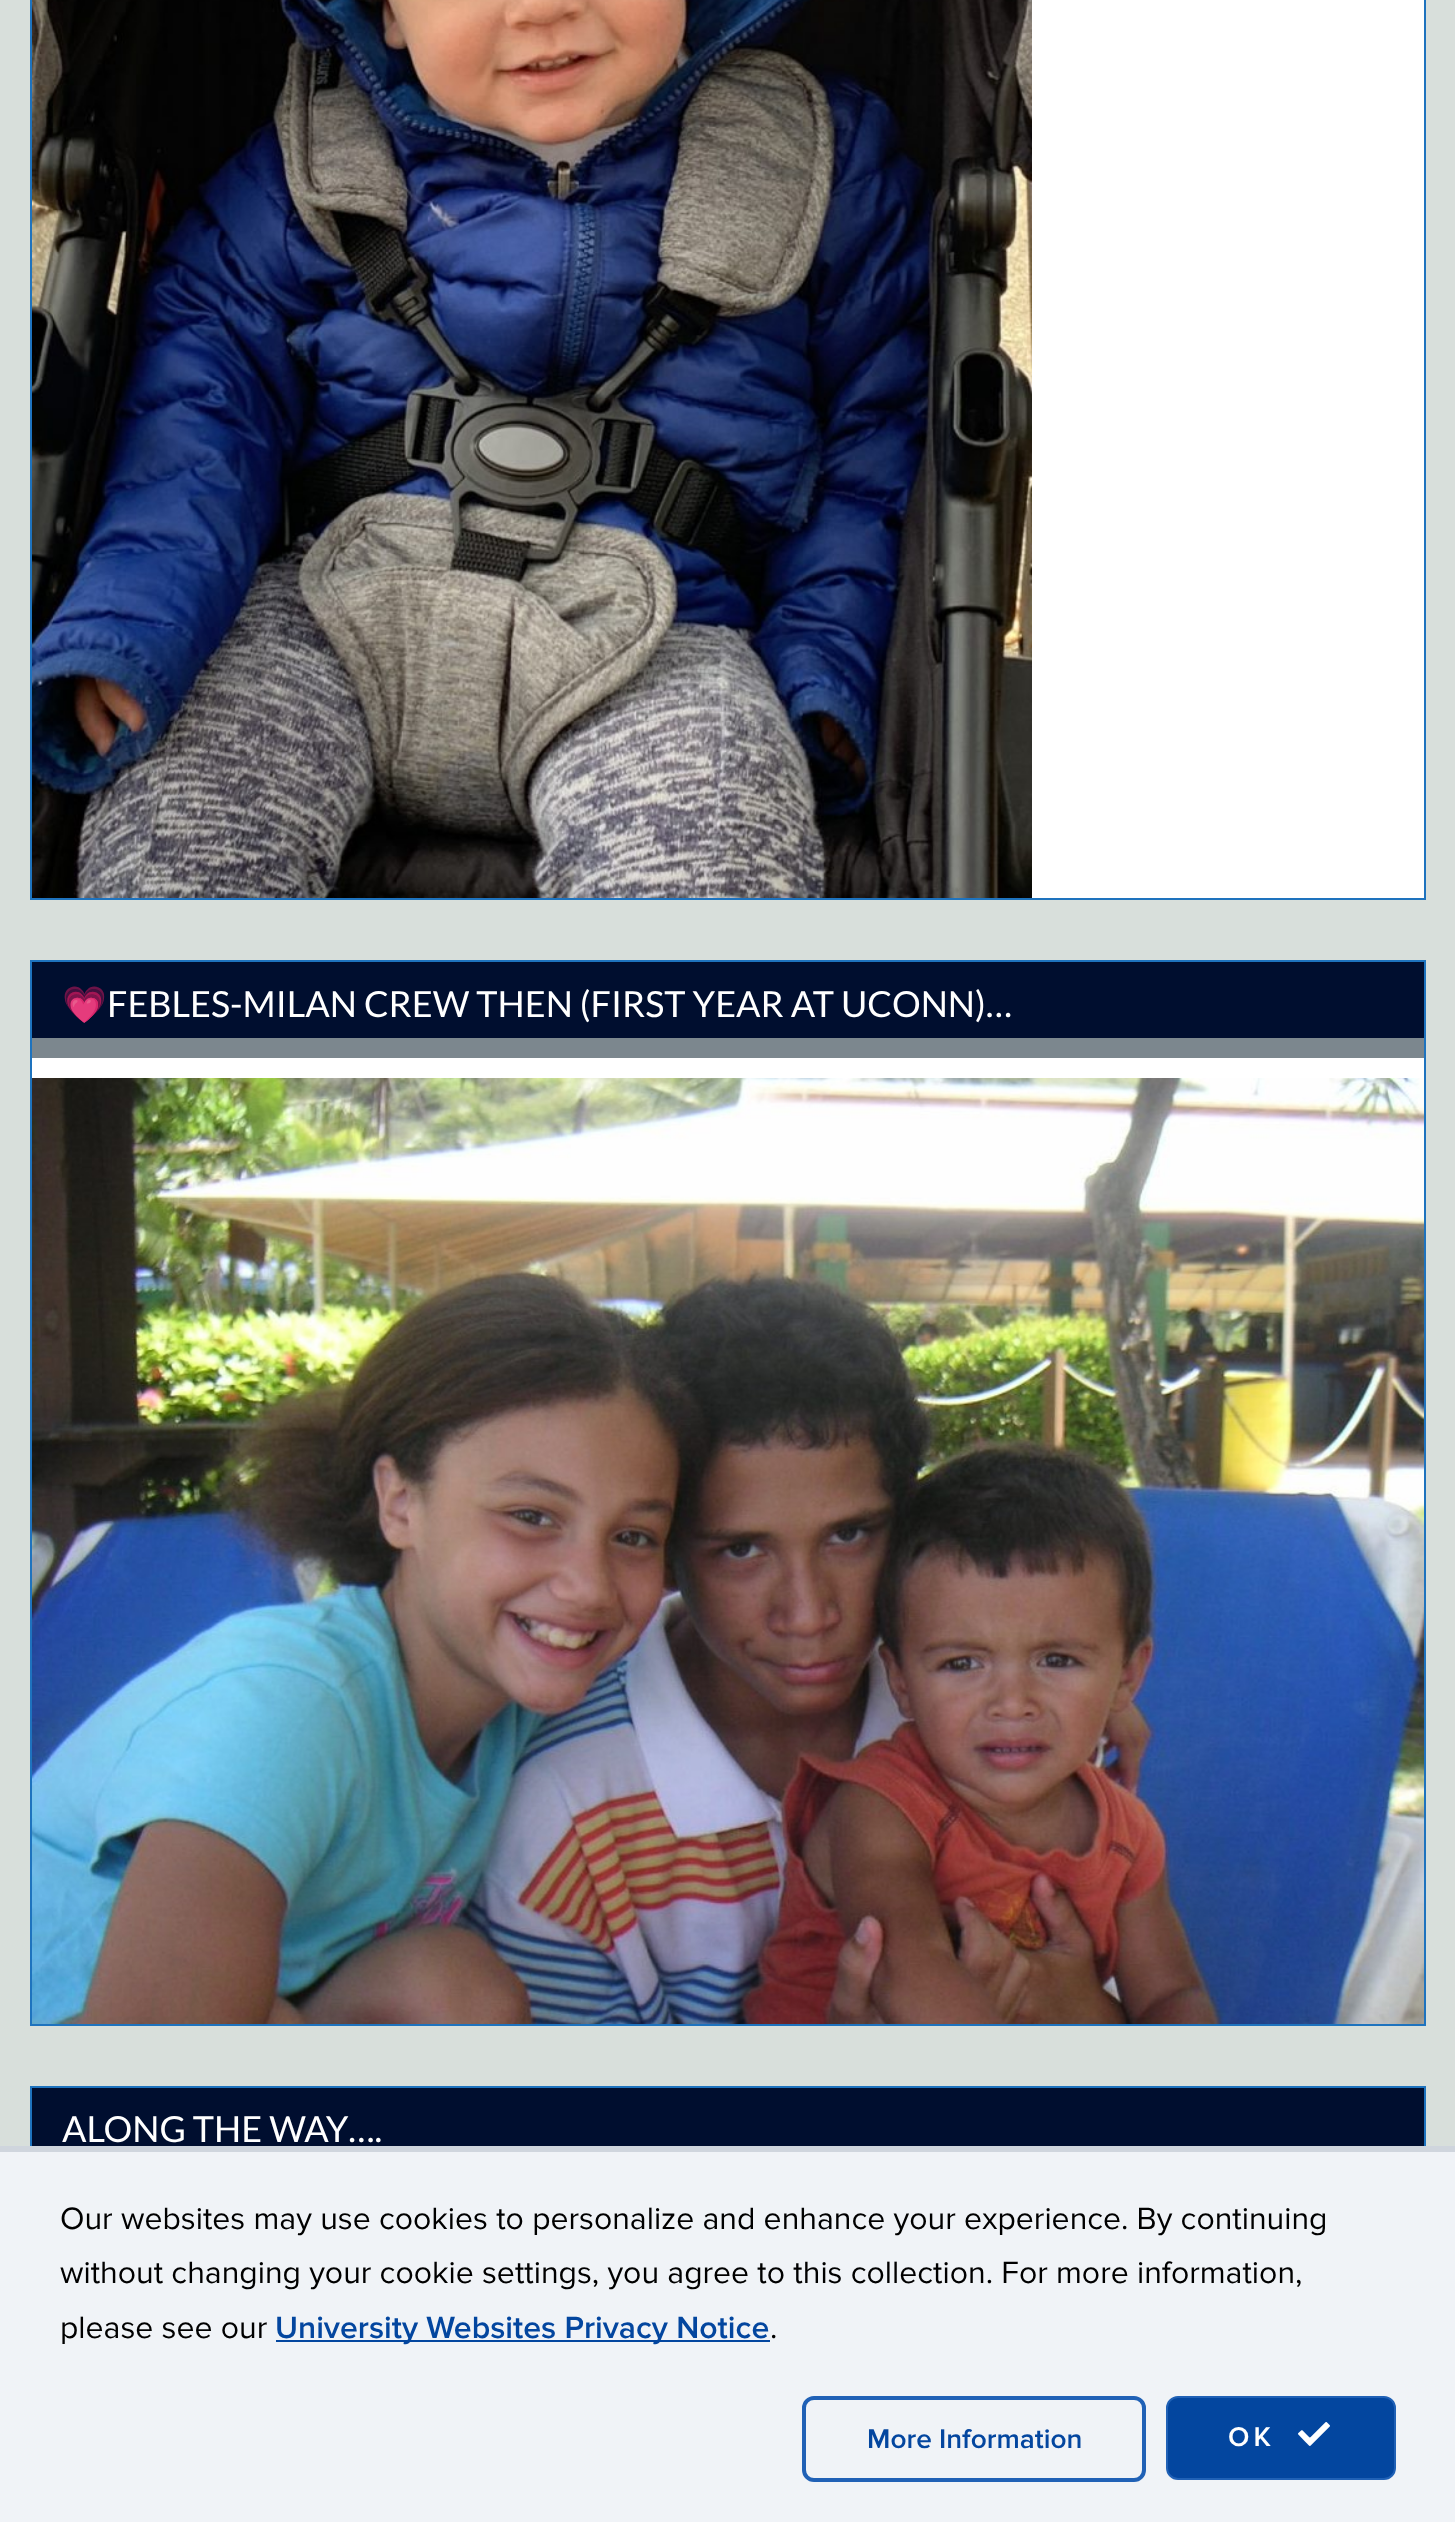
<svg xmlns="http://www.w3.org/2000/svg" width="1455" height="2522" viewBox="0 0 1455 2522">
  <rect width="100%" height="100%" fill="#d8dfdb"/>
  <path d="M1032 0h392v898H1032z" fill="#fff"/>
  <path d="M31 -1h1394v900H31z" fill="none" stroke="#1e73be" stroke-width="2"/>
  <image x="32" y="0" width="1000" height="898" href="img/1.png"/>
  <path d="M32 1058h1392v20H32z" fill="#fff"/>
  <path d="M31 961h1394v1064H31z" fill="none" stroke="#1e73be" stroke-width="2"/>
  <path d="M32 962h1392v76H32z" fill="#000e2f"/>
  <path d="M32 1038h1392v20H32z" fill="#7c878e"/>
  <image x="32" y="1078" width="1392" height="946" href="img/2.png"/>
  <path d="M31 2087h1394v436H31z" fill="none" stroke="#1e73be" stroke-width="2"/>
  <path d="M32 2088h1392v58H32z" fill="#000e2f"/>
  <path d="M0 2152h1455v370H0z" fill="#f0f3f7"/>
  <path d="M0 2146h1455v6H0z" fill="#cfd5dd"/>
  <path d="M276 2340h494v2H276z" fill="#03469f"/>
  <rect x="804" y="2398" width="340" height="82" rx="10" fill="none" stroke="#2061b6" stroke-width="4"/>
  <rect x="1167" y="2397" width="228" height="82" rx="11" fill="#03469f" stroke="#2061b6" stroke-width="2"/>
  <image x="1298" y="2422" width="32" height="24" href="img/3.png"/>
  <text x="62" y="1017" font-family="Noto Color Emoji" font-size="36" fill="#fff">💗</text>
  <g font-family="Lato" font-size="36" fill="#fff">
    <text x="107" y="1017">FEBLES-MILAN CREW THEN (FIRST YEAR AT UCONN)…</text>
    <text x="62" y="2142">ALONG THE WAY….</text>
  </g>
  <g font-family="Proxima Nova" font-size="32" fill="#000">
    <text x="60" y="2229">Our websites may use cookies to personalize and enhance your experience. By continuing</text>
    <text x="60" y="2283">without changing your cookie settings, you agree to this collection. For more information,</text>
    <text x="60" y="2338">please see our</text>
  </g>
  <text x="275" y="2338" font-family="Proxima Nova" font-size="32" font-weight="600" fill="#03469f">University Websites Privacy Notice</text>
  <text x="770" y="2338" font-family="Proxima Nova" font-size="32" fill="#000">.</text>
  <text x="867" y="2448" font-family="Proxima Nova" font-size="28" font-weight="600" fill="#03469f">More Information</text>
  <text x="1228" y="2446" font-family="Proxima Nova" font-size="28" font-weight="600" letter-spacing="4" fill="#fff">OK</text>
</svg>
